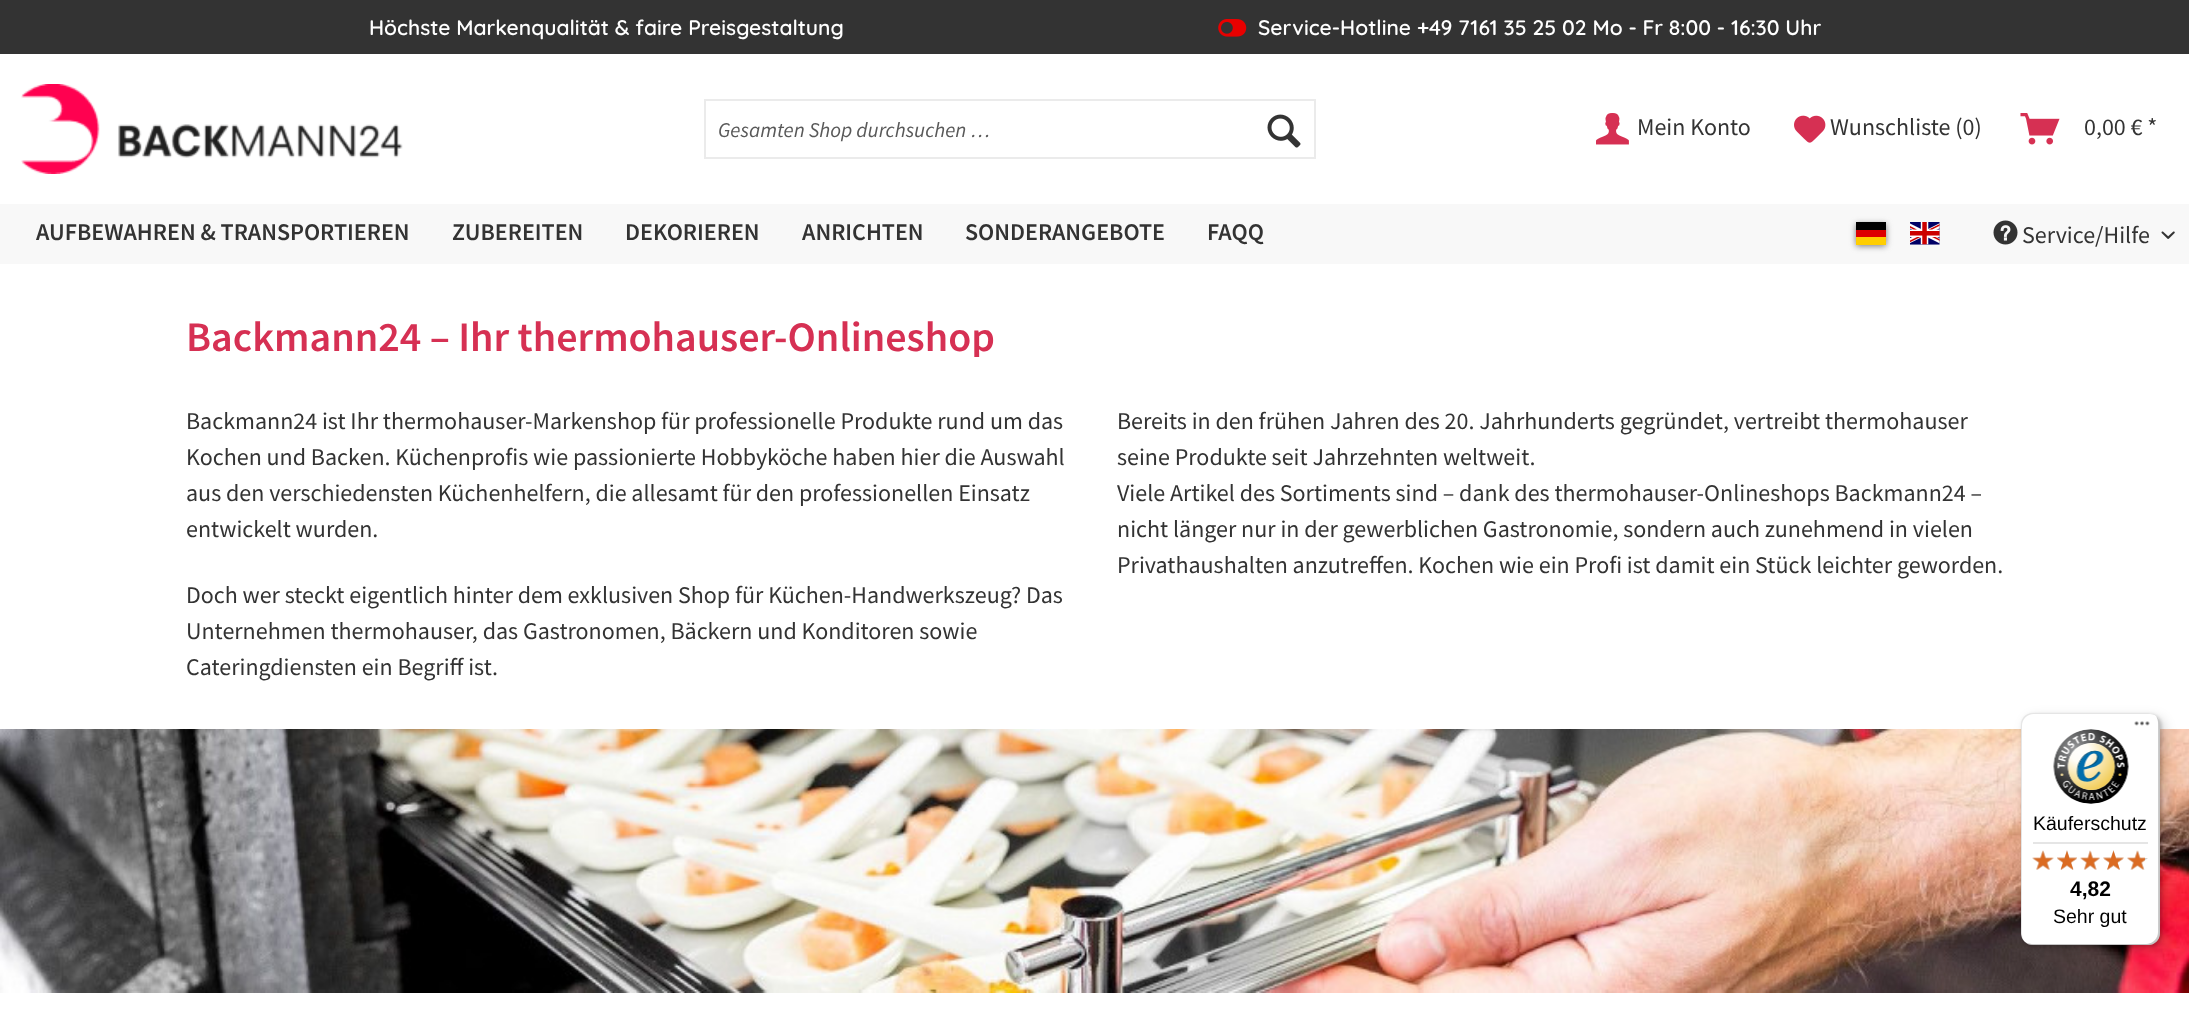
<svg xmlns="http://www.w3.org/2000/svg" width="2189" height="1026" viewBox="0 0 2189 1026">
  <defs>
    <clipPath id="clip1"><path d="M186 264h1818v93H186z"/></clipPath>
  </defs>
  <rect width="100%" height="100%" fill="#fff"/>
  <path d="M0 0h2189v54H0z" fill="#333"/>
  <image x="1218" y="19" width="29" height="18" href="img/1.png"/>
  <image x="21" y="84" width="382" height="90" href="img/2.png"/>
  <path d="M705 100h610v58H705z" fill="none" stroke="#ebebeb" stroke-width="2"/>
  <image x="1267" y="114" width="34" height="34" href="img/3.png"/>
  <image x="1596" y="113" width="33" height="32" href="img/4.png"/>
  <image x="1794" y="115" width="32" height="28" href="img/5.png"/>
  <image x="2020" y="113" width="40" height="32" href="img/6.png"/>
  <path d="M0 204h2189v60H0z" fill="#f8f8f8"/>
  <path d="M1856 224h30v22H1856z" fill="#787878" filter="blur(3px)"/>
  <path d="M1856 222h30v8H1856z" fill="#000"/>
  <path d="M1856 230h30v7H1856z" fill="#d00"/>
  <path d="M1856 237h30v8H1856z" fill="#ffce00"/>
  <image x="1910" y="222" width="30" height="23" href="img/7.png"/>
  <image x="1993" y="220" width="25" height="25" href="img/8.png"/>
  <image x="2161" y="231" width="14" height="8" href="img/9.png"/>
  <image x="0" y="729" width="2189" height="264" href="img/10.png"/>
  <rect x="2025" y="717" width="140" height="233" rx="12" fill="#00000026" filter="blur(6px)"/>
  <rect x="2022" y="714" width="140" height="233" rx="12" fill="#00000026" filter="blur(1.5px)"/>
  <rect x="2021" y="713" width="139" height="232" rx="12" fill="#fff"/>
  <path d="M2034 714H2150L2155 715C2153 714 2150 713 2148 713H2033C2026 713 2021 718 2021 725V933C2021 936 2022 939 2024 941C2023 939 2022 937 2022 934V726C2022 719 2027 714 2034 714Z" fill="#0000001a"/>
  <path d="M2027 943C2028 944 2031 945 2033 945H2148C2155 945 2160 940 2160 933V725C2160 721 2158 718 2156 716C2157 718 2158 720 2158 723V932C2158 938 2153 944 2146 944H2031Z" fill="#00000033"/>
  <path d="M2025 942C2027 944 2030 945 2033 945H2148C2155 945 2160 940 2160 933V725C2160 722 2159 719 2157 717C2158 719 2159 721 2159 724V932C2159 939 2154 944 2147 944H2032C2029 944 2027 943 2025 942Z" fill="#32323233"/>
  <path d="M2025 942C2027 944 2030 945 2033 945H2148C2155 945 2160 940 2160 933V725C2160 722 2159 719 2157 717C2158 719 2159 721 2159 724V932C2159 939 2154 944 2147 944H2032C2029 944 2027 943 2025 942Z" fill="#ffffff4d"/>
  <image x="2134" y="721" width="16" height="5" href="img/11.png"/>
  <image x="2053" y="729" width="76" height="75" href="img/12.png"/>
  <path d="M2033 842h115v2H2033z" fill="#e5e5e5"/>
  <image x="2032" y="851" width="22" height="19" href="img/13.png"/>
  <image x="2057" y="850" width="20" height="20" href="img/14.png"/>
  <image x="2080" y="851" width="20" height="19" href="img/15.png"/>
  <image x="2103" y="850" width="21" height="20" href="img/16.png"/>
  <image x="2127" y="851" width="21" height="19" href="img/17.png"/>
  <image x="2032" y="850" width="22" height="20" href="img/18.png"/>
  <image x="2057" y="850" width="20" height="20" href="img/19.png"/>
  <image x="2080" y="850" width="20" height="20" href="img/20.png"/>
  <image x="2103" y="850" width="21" height="20" href="img/21.png"/>
  <image x="2127" y="850" width="18" height="20" href="img/22.png"/>
  <g font-family="Quicksand" font-size="21" font-weight="600" fill="#fff">
    <text x="369" y="35">Höchste Markenqualität &amp; faire Preisgestaltung</text>
    <text x="1258" y="35">Service-Hotline +49 7161 35 25 02 Mo - Fr 8:00 - 16:30 Uhr</text>
  </g>
  <text x="718" y="137" font-family="Source Sans Pro" font-size="21" font-style="italic" fill="#595959">Gesamten Shop durchsuchen …</text>
  <g font-family="Source Sans Pro" font-size="24" fill="#333">
    <text x="1637" y="135">Mein Konto</text>
    <text x="1830" y="135">Wunschliste (0)</text>
    <text x="2084" y="135">0,00 € *</text>
  </g>
  <g font-family="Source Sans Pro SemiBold" font-size="24" font-weight="600" fill="#333">
    <text x="36" y="240">AUFBEWAHREN &amp; TRANSPORTIEREN</text>
    <text x="452" y="240">ZUBEREITEN</text>
    <text x="625" y="240">DEKORIEREN</text>
    <text x="802" y="240">ANRICHTEN</text>
    <text x="965" y="240">SONDERANGEBOTE</text>
    <text x="1207" y="240">FAQQ</text>
  </g>
  <text x="2022" y="243" font-family="Source Sans Pro" font-size="24" fill="#333">Service/Hilfe</text>
  <g clip-path="url(#clip1)">
    <text x="186" y="351" font-family="Source Sans Pro SemiBold" font-size="42" font-weight="600" fill="#d63053">Backmann24 – Ihr thermohauser-Onlineshop</text>
  </g>
  <g font-family="Source Sans Pro" font-size="24" fill="#333">
    <text x="186" y="429">Backmann24 ist Ihr thermohauser-Markenshop für professionelle Produkte rund um das</text>
    <text x="186" y="465">Kochen und Backen. Küchenprofis wie passionierte Hobbyköche haben hier die Auswahl</text>
    <text x="186" y="501">aus den verschiedensten Küchenhelfern, die allesamt für den professionellen Einsatz</text>
    <text x="186" y="537">entwickelt wurden.</text>
    <text x="186" y="603">Doch wer steckt eigentlich hinter dem exklusiven Shop für Küchen-Handwerkszeug? Das</text>
    <text x="186" y="639">Unternehmen thermohauser, das Gastronomen, Bäckern und Konditoren sowie</text>
    <text x="186" y="675">Cateringdiensten ein Begriff ist.</text>
    <text x="1117" y="429">Bereits in den frühen Jahren des 20. Jahrhunderts gegründet, vertreibt thermohauser</text>
    <text x="1117" y="465">seine Produkte seit Jahrzehnten weltweit.</text>
    <text x="1117" y="501">Viele Artikel des Sortiments sind – dank des thermohauser-Onlineshops Backmann24 –</text>
    <text x="1117" y="537">nicht länger nur in der gewerblichen Gastronomie, sondern auch zunehmend in vielen</text>
    <text x="1117" y="573">Privathaushalten anzutreffen. Kochen wie ein Profi ist damit ein Stück leichter geworden.</text>
  </g>
  <text x="2033" y="830" font-family="Liberation Sans" font-size="19.5" fill="#000">Käuferschutz</text>
  <text x="2070" y="896" font-family="Liberation Sans" font-size="21" font-weight="bold" fill="#000">4,82</text>
  <text x="2053" y="923" font-family="Liberation Sans" font-size="19.5" fill="#000">Sehr gut</text>
</svg>
